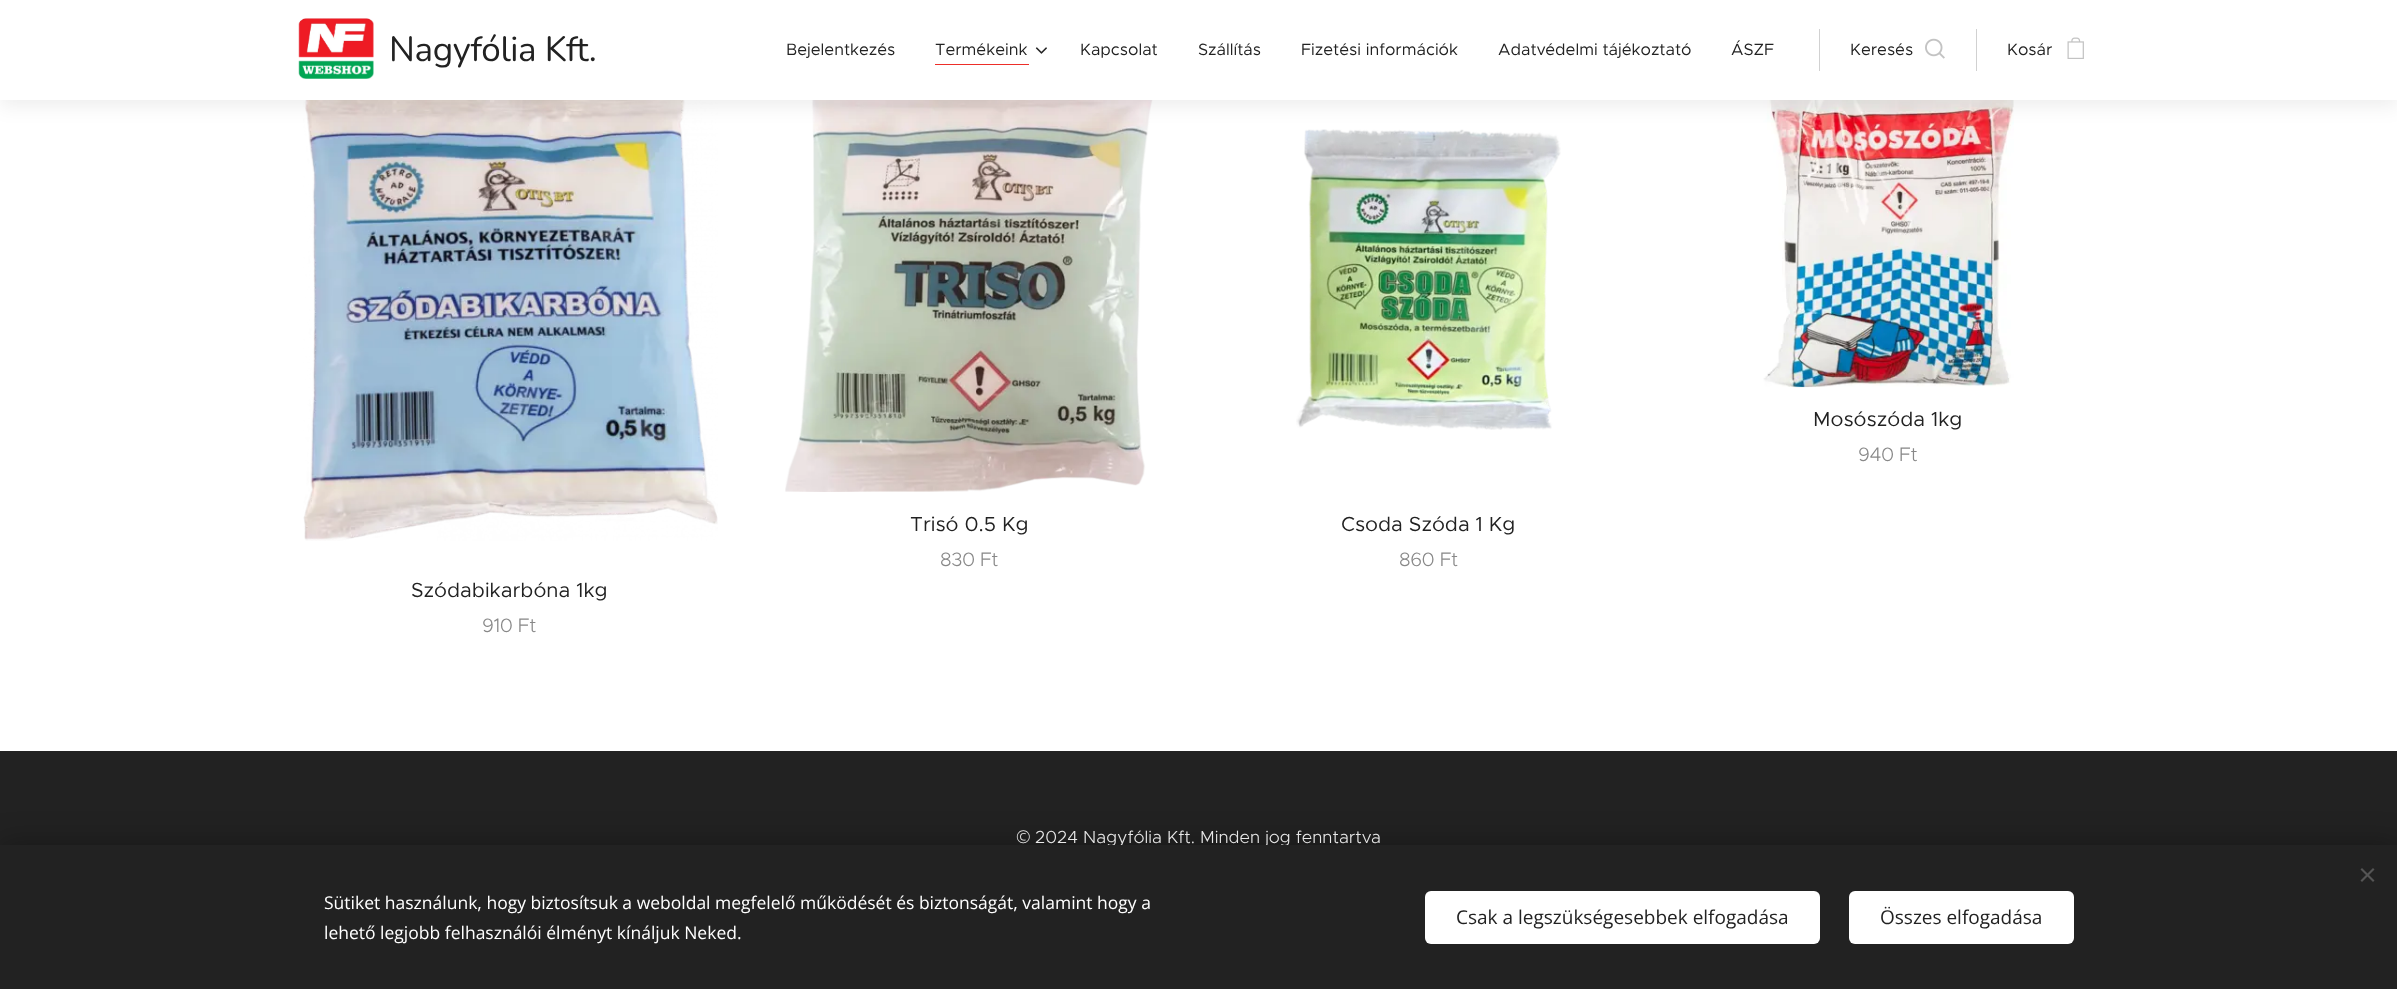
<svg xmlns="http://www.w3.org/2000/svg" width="2397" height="989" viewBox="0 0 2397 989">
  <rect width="100%" height="100%" fill="#fff"/>
  <image x="1763" y="100" width="251" height="288" href="img/5.png"/>
  <image x="785" y="100" width="368" height="392" href="img/6.png"/>
  <image x="1296" y="129" width="265" height="301" href="img/7.png"/>
  <image x="303" y="100" width="415" height="441" href="img/8.png"/>
  <path d="M0 6h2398v100H0z" fill="#00000012" filter="blur(9.5px)"/>
  <path d="M0 0h2397v100H0z" fill="#fff"/>
  <image x="298" y="18" width="76" height="61" href="img/1.png"/>
  <path d="M935 64h94v1H935z" fill="#ed2e29"/>
  <image x="1035" y="47" width="12" height="7" href="img/2.png"/>
  <path d="M1819 29h1v42H1819z" fill="#d1d1d1"/>
  <image x="1925" y="38" width="20" height="21" href="img/3.png"/>
  <path d="M1976 29h1v42H1976z" fill="#d1d1d1"/>
  <image x="2067" y="37" width="17" height="22" href="img/4.png"/>
  <path d="M0 751h2397v94H0z" fill="#222"/>
  <path d="M0 845h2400v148H0z" fill="#00000054" filter="blur(15.5px)"/>
  <text x="389" y="61" font-family="Nunito" font-size="35" letter-spacing="-0.4" fill="#222">Nagyfólia Kft.</text>
  <g font-family="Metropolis" font-size="16.5" fill="#222">
    <text x="786" y="55">Bejelentkezés</text>
    <text x="935" y="55">Termékeink</text>
    <text x="1080" y="55">Kapcsolat</text>
    <text x="1198" y="55">Szállítás</text>
    <text x="1301" y="55">Fizetési információk</text>
    <text x="1498" y="55">Adatvédelmi tájékoztató</text>
    <text x="1731" y="55">ÁSZF</text>
    <text x="1850" y="55">Keresés</text>
    <text x="2007" y="55">Kosár</text>
  </g>
  <text x="1813" y="426" font-family="Metropolis" font-size="20.5" fill="#222">Mosószóda 1kg</text>
  <text x="1858" y="461" font-family="Metropolis" font-size="19.5" font-weight="300" letter-spacing="-0.4" fill="#888">940 Ft</text>
  <text x="910" y="531" font-family="Metropolis" font-size="20.5" fill="#222">Trisó 0.5 Kg</text>
  <text x="940" y="566" font-family="Metropolis" font-size="19.5" font-weight="300" letter-spacing="-0.4" fill="#888">830 Ft</text>
  <text x="1341" y="531" font-family="Metropolis" font-size="20.5" fill="#222">Csoda Szóda 1 Kg</text>
  <text x="1399" y="566" font-family="Metropolis" font-size="19.5" font-weight="300" letter-spacing="-0.4" fill="#888">860 Ft</text>
  <text x="411" y="597" font-family="Metropolis" font-size="20.5" fill="#222">Szódabikarbóna 1kg</text>
  <text x="482" y="632" font-family="Metropolis" font-size="19.5" font-weight="300" letter-spacing="-0.4" fill="#888">910 Ft</text>
  <text x="1016" y="843" font-family="Noto Sans" font-size="17.5" font-weight="300" fill="#e9e9e9">©</text>
  <text x="1035" y="843" font-family="Metropolis" font-size="17.5" font-weight="300" fill="#e9e9e9">2024 Nagyfólia Kft. Minden jog fenntartva</text>
  <path d="M0 845h2397v144H0z" fill="#222"/>
  <path d="M2360.5 880.5L2373 868L2374.5 869.5L2362 882Z" fill="#555"/>
  <path d="M2362 868L2374.5 880.5L2373 882L2360.5 869.5Z" fill="#555"/>
  <g font-family="Open Sans" font-size="17.5" fill="#fff">
    <text x="324" y="909">Sütiket használunk, hogy biztosítsuk a weboldal megfelelő működését és biztonságát, valamint hogy a</text>
    <text x="324" y="939">lehető legjobb felhasználói élményt kínáljuk Neked.</text>
  </g>
  <rect x="1425" y="891" width="395" height="53" rx="6" fill="#fff"/>
  <text x="1456" y="924" font-family="Open Sans" font-size="19" fill="#222">Csak a legszükségesebbek elfogadása</text>
  <rect x="1849" y="891" width="225" height="53" rx="6" fill="#fff"/>
  <text x="1880" y="924" font-family="Open Sans" font-size="19" fill="#222">Összes elfogadása</text>
</svg>
